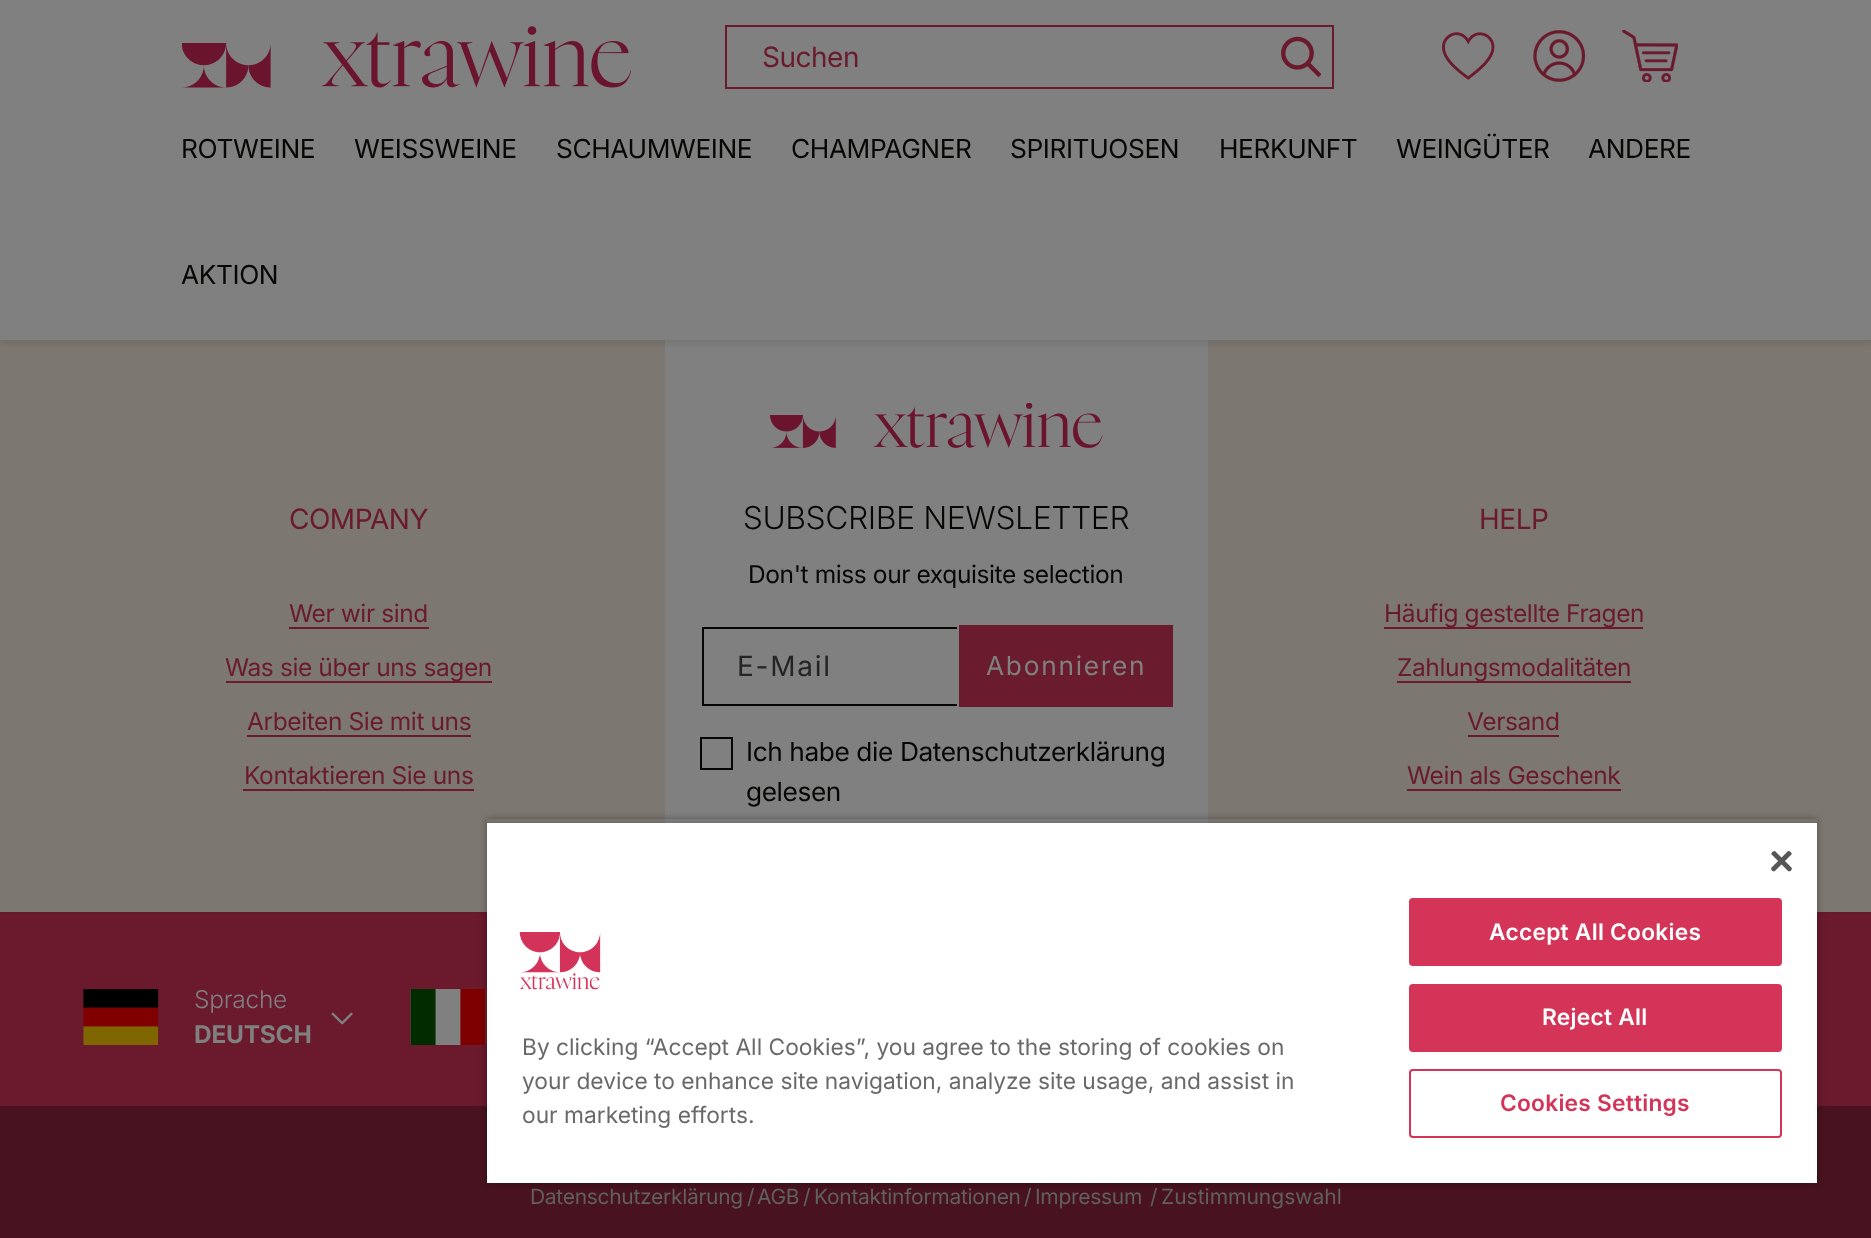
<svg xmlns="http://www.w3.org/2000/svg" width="1871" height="1238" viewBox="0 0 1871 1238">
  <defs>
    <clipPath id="clip1"><path d="M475 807H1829V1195H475ZM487 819H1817V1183H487Z" clip-rule="evenodd"/></clipPath>
    <clipPath id="clip2"><path d="M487 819h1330v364H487z"/></clipPath>
  </defs>
  <rect width="100%" height="100%" fill="#7c7771"/>
  <path d="M665 340h543v483H665z" fill="#808080"/>
  <path d="M0 4h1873v339H0z" fill="#0000001a" filter="blur(3.5px)"/>
  <path d="M0 0h1871v340H0z" fill="#808080"/>
  <image x="182" y="26" width="450" height="62" href="img/1.png"/>
  <image x="1281" y="36" width="41" height="41" href="img/2.png"/>
  <path d="M726 26h607v62H726z" fill="none" stroke="#6a1a2c" stroke-width="2"/>
  <image x="1442" y="32" width="53" height="48" href="img/3.png"/>
  <image x="1533" y="30" width="53" height="52" href="img/4.png"/>
  <image x="1622" y="30" width="56" height="52" href="img/5.png"/>
  <path d="M289 627h140v2H289z" fill="#6a1a2c"/>
  <path d="M226 681h266v2H226z" fill="#6a1a2c"/>
  <path d="M247 735h224v2H247z" fill="#6a1a2c"/>
  <path d="M243 789h231v2H243z" fill="#6a1a2c"/>
  <image x="770" y="403" width="333" height="45" href="img/6.png"/>
  <path d="M702 627h255v2H702z" fill="#060605"/>
  <path d="M702 704h255v2H702z" fill="#060605"/>
  <path d="M702 627h2v78H702z" fill="#060605"/>
  <path d="M959 625h214v82H959z" fill="#6a1b2d"/>
  <path d="M701 738h31v31H701z" fill="none" stroke="#060605" stroke-width="2"/>
  <path d="M1384 627h259v2H1384z" fill="#6a1a2c"/>
  <path d="M1397 681h234v2H1397z" fill="#6a1a2c"/>
  <path d="M1468 735h91v2H1468z" fill="#6a1a2c"/>
  <path d="M1407 789h214v2H1407z" fill="#6a1a2c"/>
  <path d="M0 914h1871v192H0z" fill="#6a1a2c"/>
  <path d="M0 912h1871v2H0z" fill="#621929"/>
  <image x="83" y="989" width="76" height="56" href="img/7.png"/>
  <image x="331" y="1012" width="22" height="13" href="img/8.png"/>
  <image x="410" y="989" width="76" height="56" href="img/9.png"/>
  <path d="M0 1106h1871v132H0z" fill="#48121f"/>
  <g clip-path="url(#clip1)">
    <path d="M487 819h1330v364H487z" fill="#00000059" filter="blur(3.5px)"/>
  </g>
  <g clip-path="url(#clip2)">
    <path d="M487 823h1330v360H487z" fill="#00000033" filter="blur(3.5px)"/>
  </g>
  <path d="M487 823h1330v360H487z" fill="#fff"/>
  <image x="1771" y="851" width="21" height="21" href="img/10.png"/>
  <image x="519" y="932" width="82" height="58" href="img/11.png"/>
  <rect x="1410" y="899" width="371" height="66" rx="3" fill="#d33458" stroke="#d33458" stroke-width="2"/>
  <rect x="1410" y="985" width="371" height="66" rx="3" fill="#d33458" stroke="#d33458" stroke-width="2"/>
  <rect x="1410" y="1070" width="371" height="67" rx="3" fill="none" stroke="#d33458" stroke-width="2"/>
  <text x="762" y="67" font-family="Inter" font-size="28" letter-spacing="-0.5" fill="#6a1a2c">Suchen</text>
  <g font-family="Inter" font-size="26.25" letter-spacing="-0.4" fill="#060605">
    <text x="181" y="158">ROTWEINE</text>
    <text x="354" y="158">WEISSWEINE</text>
    <text x="556" y="158">SCHAUMWEINE</text>
    <text x="791" y="158">CHAMPAGNER</text>
    <text x="1010" y="158">SPIRITUOSEN</text>
    <text x="1219" y="158">HERKUNFT</text>
    <text x="1396" y="158">WEINGÜTER</text>
    <text x="1588" y="158">ANDERE</text>
    <text x="181" y="284">AKTION</text>
  </g>
  <text x="289" y="529" font-family="Inter" font-size="28" letter-spacing="-0.5" fill="#6a1a2c">COMPANY</text>
  <g font-family="Inter" font-size="24.5" letter-spacing="-0.4" fill="#6a1a2c">
    <text x="289" y="622">Wer wir sind</text>
    <text x="225" y="676">Was sie über uns sagen</text>
    <text x="247" y="730">Arbeiten Sie mit uns</text>
    <text x="244" y="784">Kontaktieren Sie uns</text>
  </g>
  <text x="743" y="529" font-family="Inter" font-size="31.5" font-weight="300" fill="#060605">SUBSCRIBE NEWSLETTER</text>
  <text x="748" y="583" font-family="Inter" font-size="24.5" letter-spacing="-0.4" fill="#060605">Don't miss our exquisite selection</text>
  <text x="737" y="676" font-family="Inter" font-size="28" letter-spacing="1.75" fill="#242424">E-Mail</text>
  <text x="986" y="675" font-family="Inter" font-size="26.25" letter-spacing="1.75" fill="#808080">Abonnieren</text>
  <g font-family="Inter" font-size="26.25" letter-spacing="-0.4" fill="#060605">
    <text x="746" y="761">Ich habe die Datenschutzerklärung</text>
    <text x="746" y="801">gelesen</text>
  </g>
  <text x="1479" y="529" font-family="Inter" font-size="28" letter-spacing="-0.5" fill="#6a1a2c">HELP</text>
  <g font-family="Inter" font-size="24.5" letter-spacing="-0.4" fill="#6a1a2c">
    <text x="1384" y="622">Häufig gestellte Fragen</text>
    <text x="1397" y="676">Zahlungsmodalitäten</text>
    <text x="1467" y="730">Versand</text>
    <text x="1407" y="784">Wein als Geschenk</text>
  </g>
  <text x="194" y="1008" font-family="'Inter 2'" font-size="24.5" font-weight="300" letter-spacing="-0.25" fill="#808080">Sprache</text>
  <text x="194" y="1043" font-family="Inter" font-size="24.5" font-weight="bold" letter-spacing="-0.25" fill="#808080">DEUTSCH</text>
  <g font-family="Inter" font-size="21" letter-spacing="-0.3" fill="#606060">
    <text x="530" y="1204">Datenschutzerklärung</text>
    <text x="747" y="1204">/</text>
    <text x="757" y="1204">AGB</text>
    <text x="803" y="1204">/</text>
    <text x="814" y="1204">Kontaktinformationen</text>
    <text x="1024" y="1204">/</text>
    <text x="1035" y="1204">Impressum</text>
    <text x="1150" y="1204">/</text>
  </g>
  <text x="1161" y="1204" font-family="Inter" font-size="21" fill="#606060">Zustimmungswahl</text>
  <g font-family="Inter" font-size="22.75" fill="#696969">
    <text x="522" y="1055">By clicking “Accept All Cookies”, you agree to the storing of cookies on</text>
    <text x="522" y="1089">your device to enhance site navigation, analyze site usage, and assist in</text>
    <text x="522" y="1123">our marketing efforts.</text>
  </g>
  <g font-family="Inter" font-size="22.75" font-weight="600" letter-spacing="0.25" fill="#fff">
    <text x="1489" y="940">Accept All Cookies</text>
    <text x="1542" y="1025">Reject All</text>
  </g>
  <text x="1500" y="1111" font-family="Inter" font-size="22.75" font-weight="600" letter-spacing="0.25" fill="#d33458">Cookies Settings</text>
</svg>
